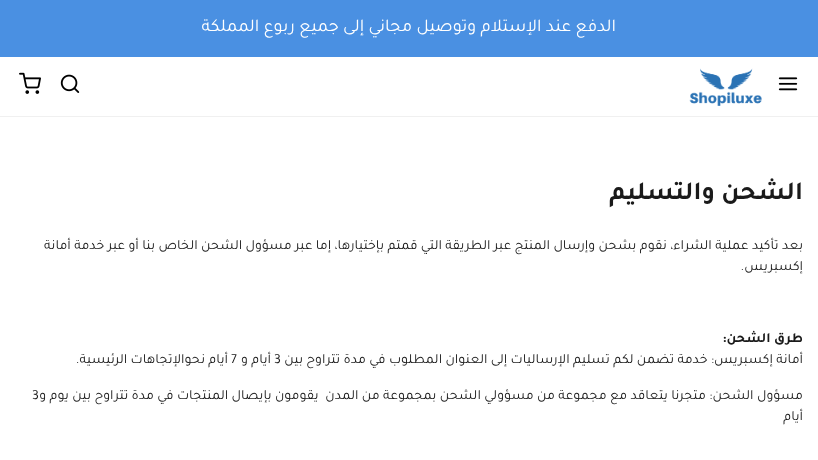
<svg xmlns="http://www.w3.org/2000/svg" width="818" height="460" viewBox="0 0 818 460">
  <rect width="100%" height="100%" fill="#fff"/>
  <path d="M0 0h818v57H0z" fill="#4a90e2"/>
  <path d="M0 116h818v1H0z" fill="#f0f0f0"/>
  <image x="778" y="77" width="20" height="14" href="img/1.png"/>
  <image x="689" y="68" width="73" height="38" href="img/2.png"/>
  <image x="60" y="74" width="20" height="19" href="img/3.png"/>
  <image x="19" y="72" width="22" height="22" href="img/4.png"/>
  <text x="616" y="31" font-family="Tajawal" font-size="18" direction="rtl" fill="#fff">الدفع عند الإستلام وتوصيل مجاني إلى جميع ربوع المملكة</text>
  <text x="803" y="199" font-family="Tajawal" font-size="26" font-weight="bold" direction="rtl" fill="#1a1a1a">الشحن والتسليم</text>
  <g font-family="Tajawal" font-size="14" direction="rtl" fill="#1a1a1a">
    <text x="803" y="249">بعد تأكيد عملية الشراء، نقوم بشحن وإرسال المنتج عبر الطريقة التي قمتم بإختيارها، إما عبر مسؤول الشحن الخاص بنا أو عبر خدمة أمانة</text>
    <text x="803" y="270">إكسبريس.</text>
  </g>
  <text x="803" y="342" font-family="Tajawal" font-size="14" font-weight="bold" direction="rtl" fill="#1a1a1a">طرق الشحن:</text>
  <text x="803" y="363" font-family="Tajawal" font-size="14" direction="rtl" fill="#1a1a1a">أمانة إكسبريس: خدمة تضمن لكم تسليم الإرساليات إلى العنوان المطلوب في مدة تتراوح بين</text>
  <text x="274" y="363" font-family="Tajawal" font-size="14" fill="#1a1a1a">3</text>
  <text x="271" y="363" font-family="Tajawal" font-size="14" direction="rtl" fill="#1a1a1a">أيام و</text>
  <text x="231" y="363" font-family="Tajawal" font-size="14" fill="#1a1a1a">7</text>
  <g font-family="Tajawal" font-size="14" direction="rtl" fill="#1a1a1a">
    <text x="228" y="363">أيام نحوالإتجاهات الرئيسية.</text>
    <text x="803" y="399" xml:space="preserve">مسؤول الشحن: متجرنا يتعاقد مع مجموعة من مسؤولي الشحن بمجموعة من المدن  يقومون بإيصال المنتجات في مدة تتراوح بين يوم و</text>
  </g>
  <text x="32" y="399" font-family="Tajawal" font-size="14" fill="#1a1a1a">3</text>
  <text x="803" y="420" font-family="Tajawal" font-size="14" direction="rtl" fill="#1a1a1a">أيام</text>
</svg>
